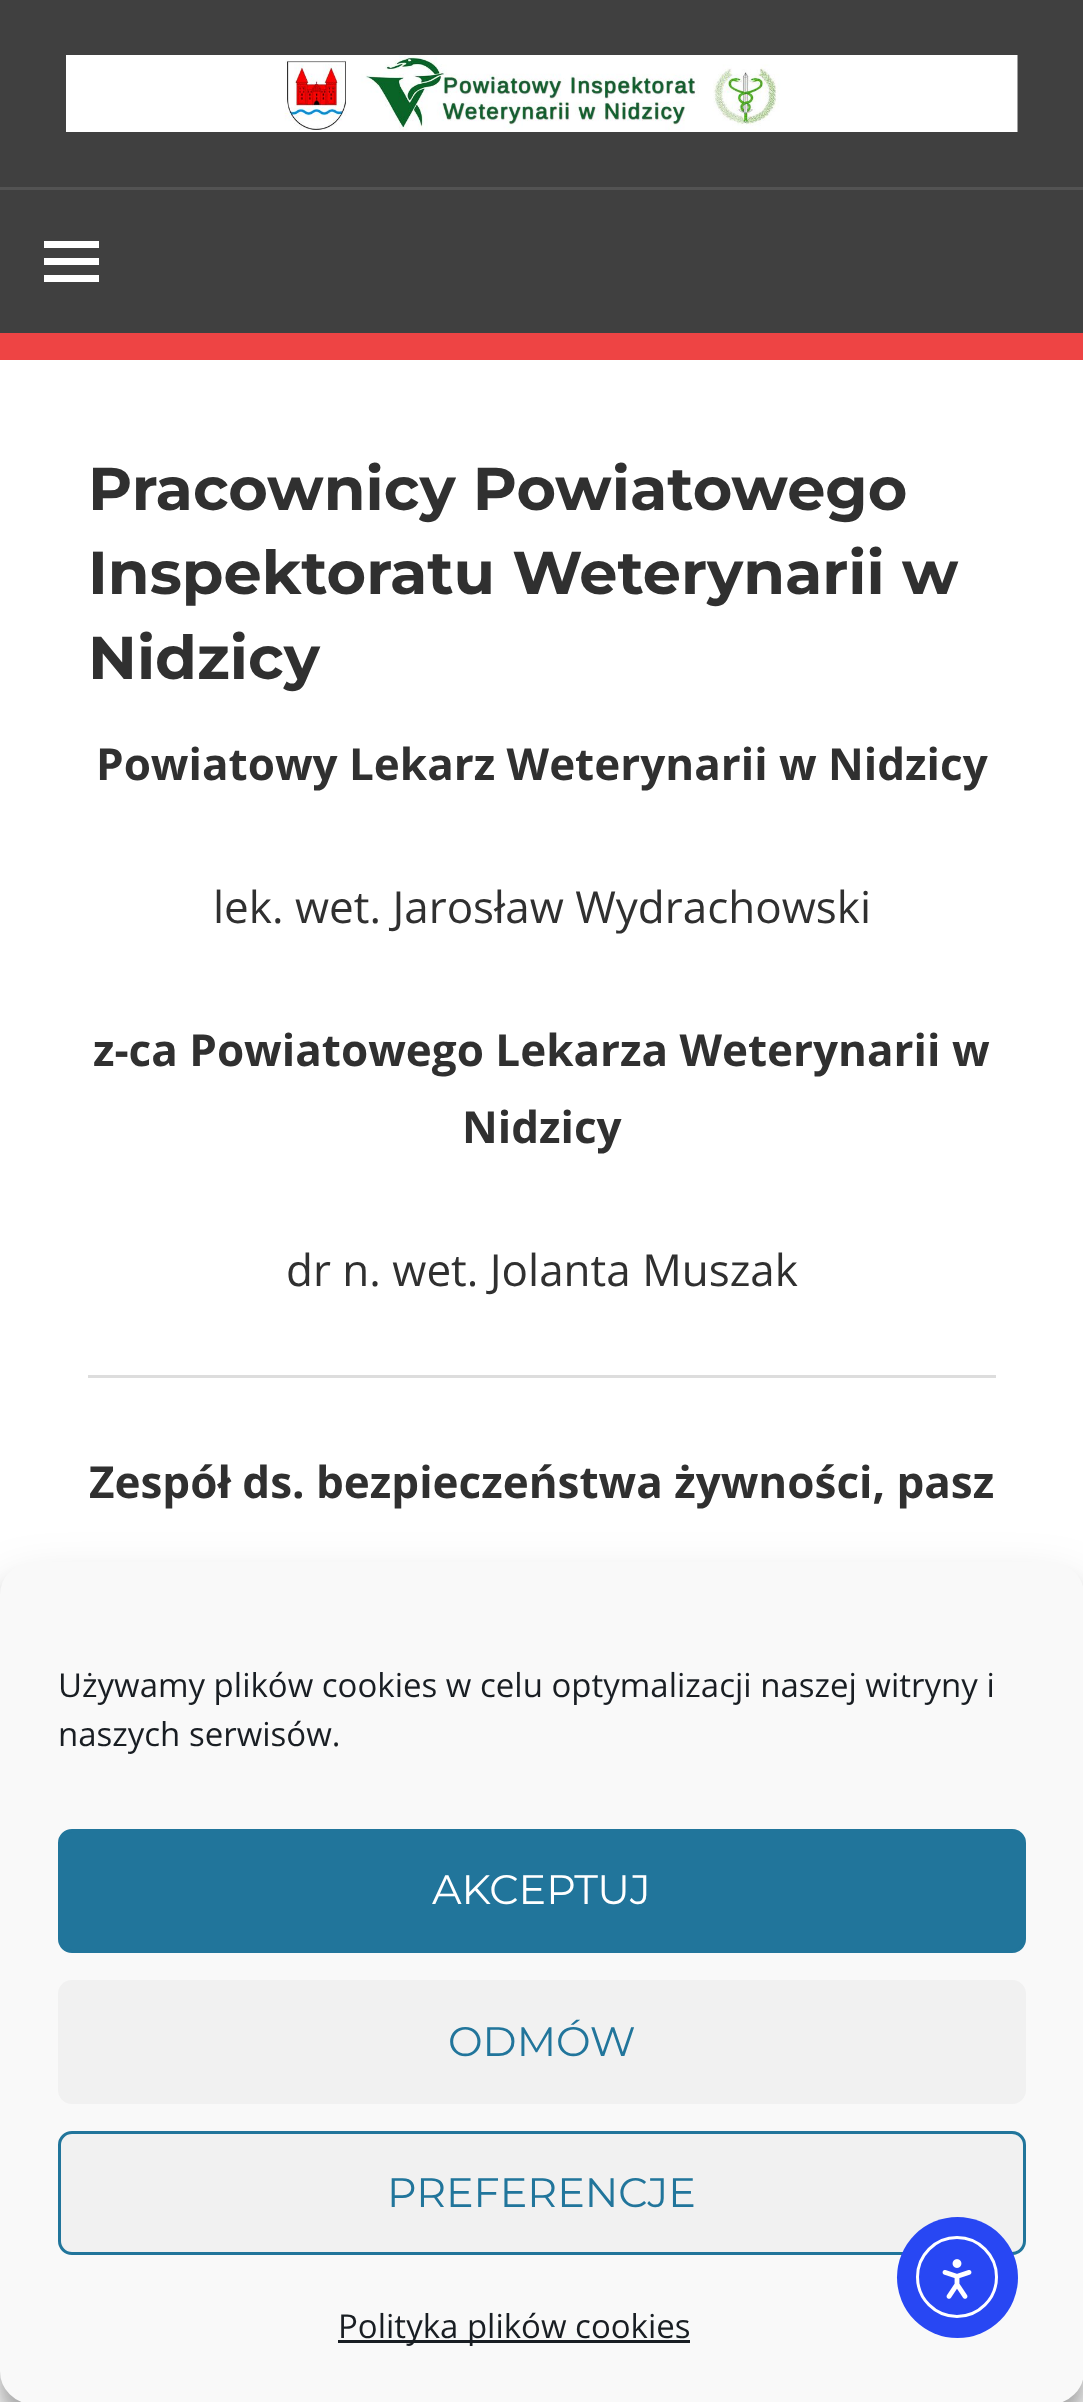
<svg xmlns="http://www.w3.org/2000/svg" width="1083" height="2402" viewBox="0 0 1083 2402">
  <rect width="100%" height="100%" fill="#404040"/>
  <path d="M0 333h1083v27H0z" fill="#e44"/>
  <image x="66" y="55" width="952" height="77" href="img/1.png"/>
  <path d="M0 187h1083v3H0z" fill="#535353"/>
  <path d="M44 282V275H99V282ZM44 241H99V248H44ZM44 265V258H99V265Z" fill="#fff"/>
  <path d="M0 360h1083v2042H0z" fill="#fff"/>
  <path d="M88 1375h908v3H88z" fill="#ddd"/>
  <rect y="1579" width="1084" height="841" rx="33" fill="#0000003b" filter="blur(8px)"/>
  <rect y="1590" width="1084" height="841" rx="33" fill="#00000030" filter="blur(27.5px)"/>
  <rect x="1.5" y="1563.5" width="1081" height="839" rx="31.5" fill="#f9f9f9" stroke="#f9f9f9" stroke-width="3"/>
  <rect x="59.5" y="1830.5" width="965" height="121" rx="12.5" fill="#21759b" stroke="#21759b" stroke-width="3"/>
  <rect x="58" y="1980" width="968" height="124" rx="14" fill="#f1f1f1"/>
  <rect x="59.5" y="2132.5" width="965" height="121" rx="12.5" fill="#f1f1f1" stroke="#21759b" stroke-width="3"/>
  <path d="M338 2340h352v3H338z" fill="#191e23"/>
  <circle cx="957.5" cy="2277.5" r="60.5" fill="#2847f3"/>
  <circle cx="957" cy="2277" r="39.5" fill="none" stroke="#fff" stroke-width="3"/>
  <image x="942" y="2259" width="30" height="40" href="img/2.png"/>
  <g font-family="Montserrat" font-size="60.5" font-weight="bold" fill="#303030">
    <text x="88" y="510">Pracownicy Powiatowego</text>
    <text x="88" y="594">Inspektoratu Weterynarii w</text>
    <text x="88" y="679">Nidzicy</text>
  </g>
  <text x="96" y="780" font-family="Open Sans" font-size="44" font-weight="bold" fill="#303030">Powiatowy Lekarz Weterynarii w Nidzicy</text>
  <text x="213" y="923" font-family="Open Sans" font-size="44" fill="#303030">lek. wet. Jarosław Wydrachowski</text>
  <g font-family="Open Sans" font-size="44" font-weight="bold" fill="#303030">
    <text x="93" y="1066">z-ca Powiatowego Lekarza Weterynarii w</text>
    <text x="462" y="1143">Nidzicy</text>
  </g>
  <text x="286" y="1286" font-family="Open Sans" font-size="44" fill="#303030">dr n. wet. Jolanta Muszak</text>
  <text x="89" y="1498" font-family="Open Sans" font-size="44" font-weight="bold" fill="#303030">Zespół ds. bezpieczeństwa żywności, pasz</text>
  <g font-family="Open Sans" font-size="33" fill="#191e23">
    <text x="58" y="1697">Używamy plików cookies w celu optymalizacji naszej witryny i</text>
    <text x="58" y="1746">naszych serwisów.</text>
  </g>
  <text x="432" y="1904" font-family="Montserrat" font-size="41.25" fill="#fff">AKCEPTUJ</text>
  <g font-family="Montserrat" font-size="41.25" fill="#21759b">
    <text x="448" y="2056">ODMÓW</text>
    <text x="387" y="2207">PREFERENCJE</text>
  </g>
  <text x="338" y="2338" font-family="Open Sans" font-size="33" fill="#191e23">Polityka plików cookies</text>
</svg>
